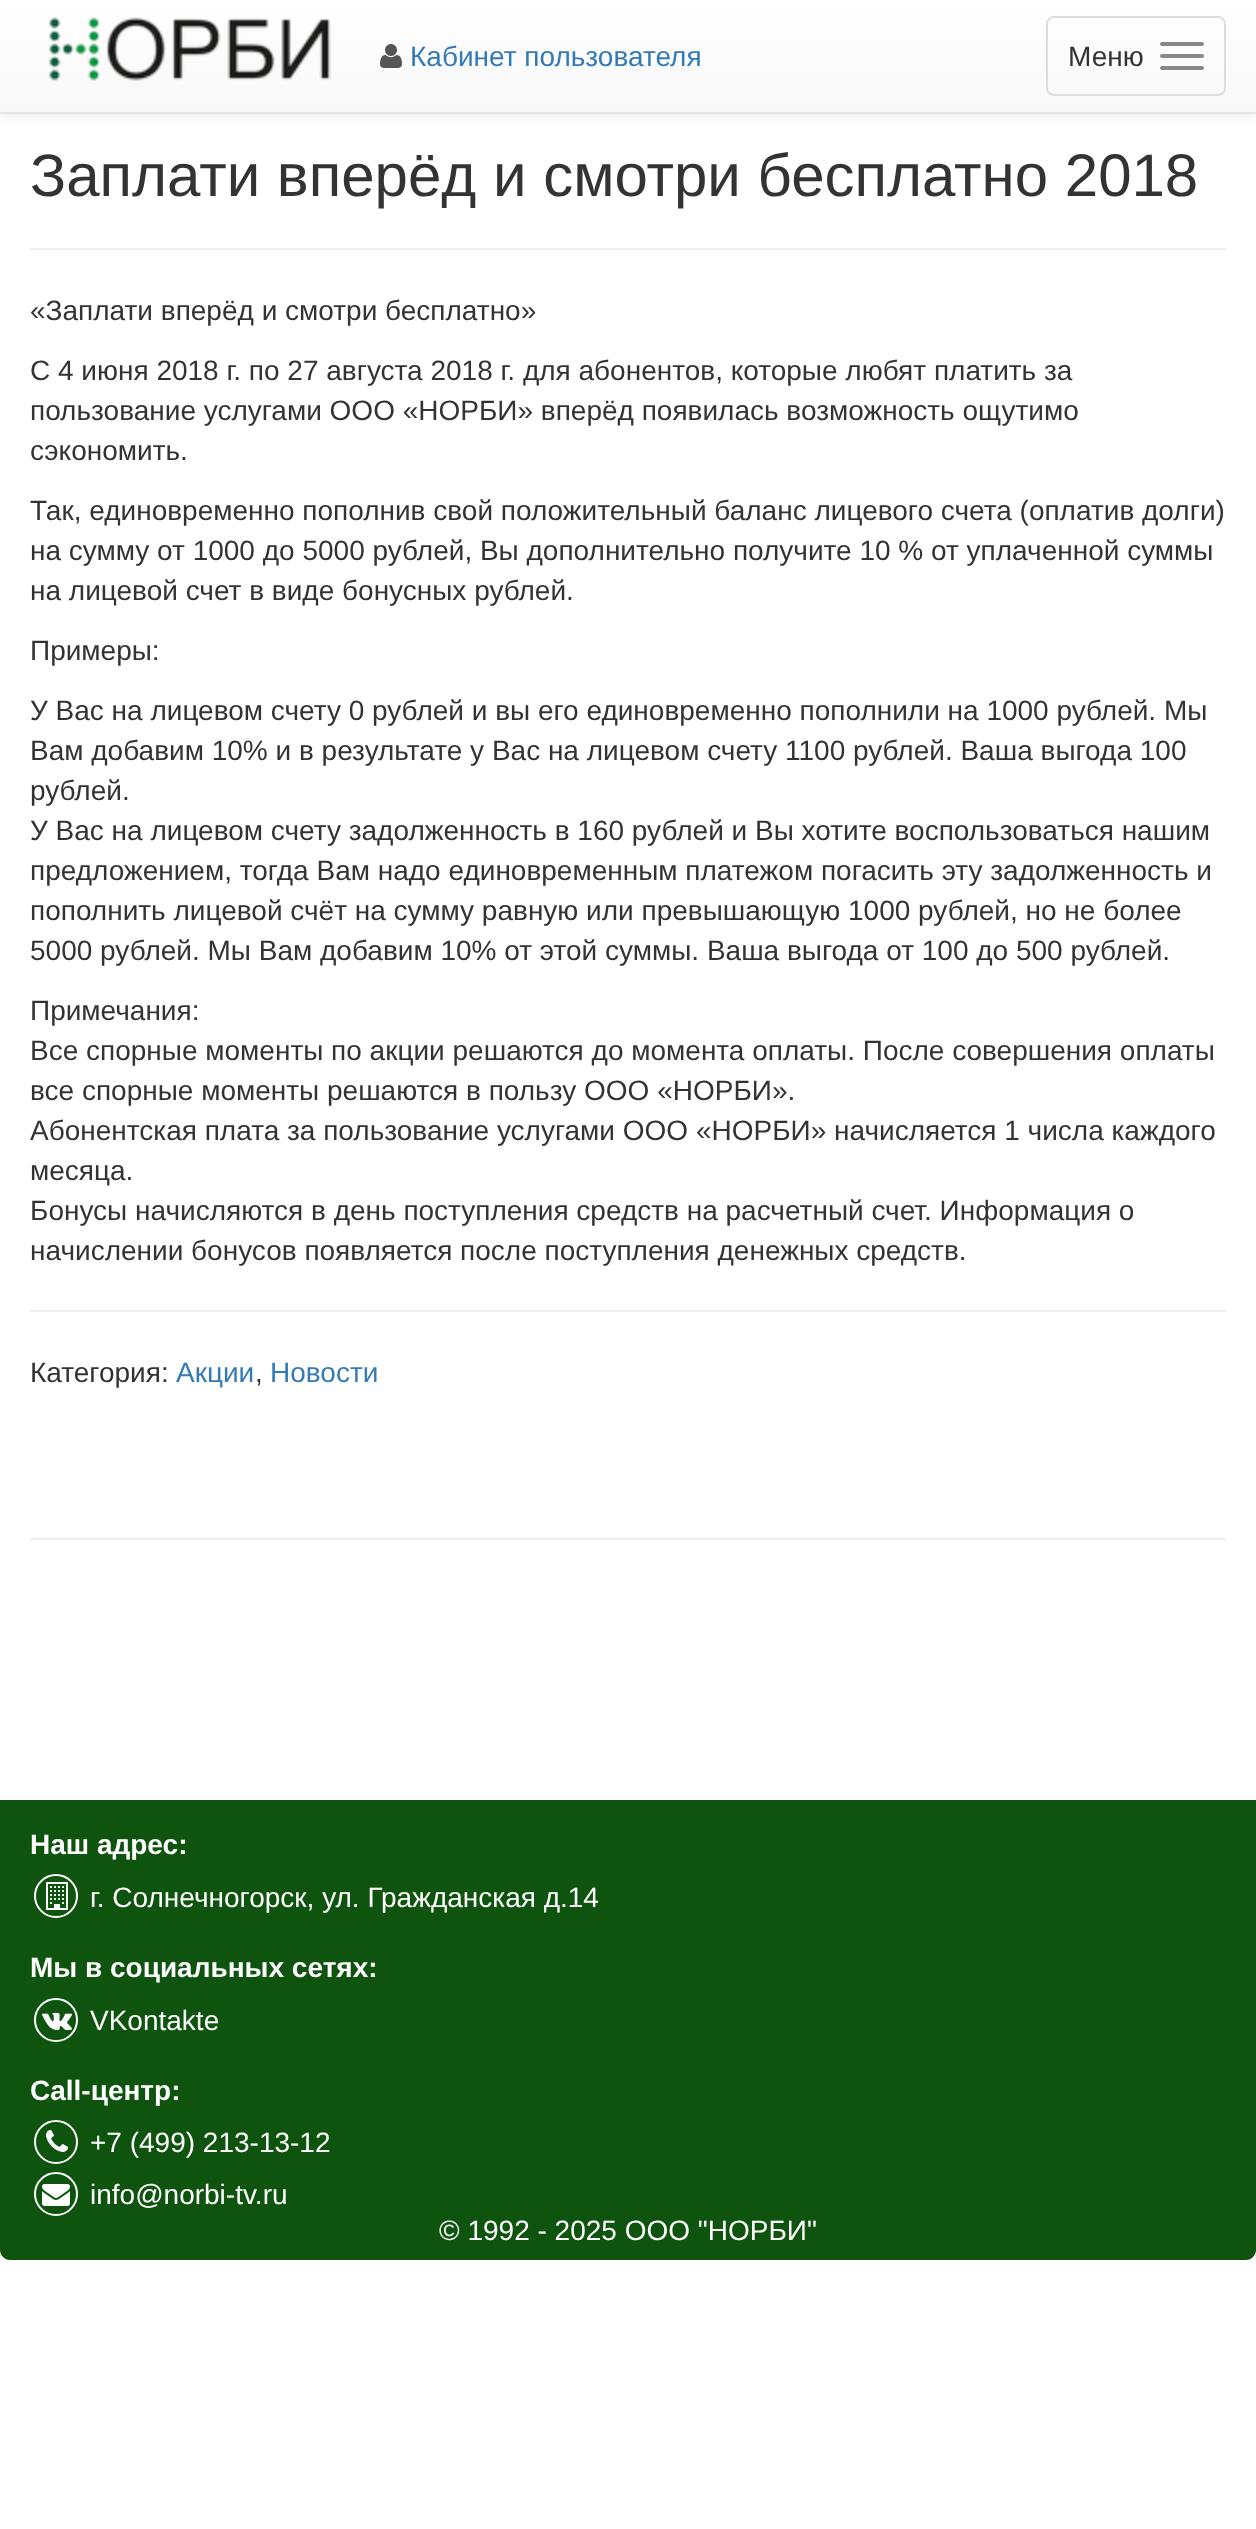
<svg xmlns="http://www.w3.org/2000/svg" width="1256" height="2529" viewBox="0 0 1256 2529">
  <defs>
    <linearGradient id="g1" gradientUnits="userSpaceOnUse" x1="628" y1="0" x2="628" y2="112"><stop offset="0" stop-color="#fff"/><stop offset="1" stop-color="#f8f8f8"/></linearGradient>
  </defs>
  <rect width="100%" height="100%" fill="#fff"/>
  <path d="M0 2h1256v114H0z" fill="#00000012" filter="blur(5px)"/>
  <path d="M0 0h1256v112H0z" fill="url(#g1)"/>
  <path d="M0 112h1256v2H0z" fill="#e7e7e7"/>
  <image x="48" y="17" width="283" height="64" href="img/1.png"/>
  <image x="380" y="44" width="22" height="24" href="img/2.png"/>
  <rect x="1047" y="17" width="178" height="78" rx="7" fill="none" stroke="#ddd" stroke-width="2"/>
  <rect x="1160" y="42" width="44" height="4" rx="2" fill="#888"/>
  <rect x="1160" y="54" width="44" height="4" rx="2" fill="#888"/>
  <rect x="1160" y="66" width="44" height="4" rx="2" fill="#888"/>
  <path d="M30 248h1196v2H30z" fill="#eee"/>
  <path d="M30 1310h1196v2H30z" fill="#eee"/>
  <path d="M30 1538h1196v2H30z" fill="#eee"/>
  <path d="M0 1800H1256V2250C1256 2255.5 1251.5 2260 1246 2260H10C4.5 2260 0 2255.5 0 2250Z" fill="#0e540e"/>
  <circle cx="56" cy="1896" r="21" fill="none" stroke="#fff" stroke-width="2"/>
  <image x="46" y="1882" width="22" height="28" href="img/3.png"/>
  <circle cx="56" cy="2020" r="21" fill="none" stroke="#fff" stroke-width="2"/>
  <image x="42" y="2012" width="30" height="18" href="img/4.png"/>
  <circle cx="56" cy="2142" r="21" fill="none" stroke="#fff" stroke-width="2"/>
  <image x="46" y="2130" width="22" height="22" href="img/5.png"/>
  <circle cx="56" cy="2194" r="21" fill="none" stroke="#fff" stroke-width="2"/>
  <image x="42" y="2184" width="28" height="22" href="img/6.png"/>
  <text x="410" y="66" font-family="Liberation Sans" font-size="28" fill="#337ab7">Кабинет пользователя</text>
  <text x="1068" y="66" font-family="Liberation Sans" font-size="28" fill="#333">Меню</text>
  <text x="30" y="196" font-family="Liberation Sans" font-size="60" fill="#333">Заплати вперёд и смотри бесплатно 2018</text>
  <g font-family="Liberation Sans" font-size="28" fill="#333">
    <text x="30" y="320">«Заплати вперёд и смотри бесплатно»</text>
    <text x="30" y="380">С 4 июня 2018 г. по 27 августа 2018 г. для абонентов, которые любят платить за</text>
    <text x="30" y="420">пользование услугами ООО «НОРБИ» вперёд появилась возможность ощутимо</text>
    <text x="30" y="460">сэкономить.</text>
    <text x="30" y="520">Так, единовременно пополнив свой положительный баланс лицевого счета (оплатив долги)</text>
    <text x="30" y="560">на сумму от 1000 до 5000 рублей, Вы дополнительно получите 10 % от уплаченной суммы</text>
    <text x="30" y="600">на лицевой счет в виде бонусных рублей.</text>
    <text x="30" y="660">Примеры:</text>
    <text x="30" y="720">У Вас на лицевом счету 0 рублей и вы его единовременно пополнили на 1000 рублей. Мы</text>
    <text x="30" y="760">Вам добавим 10% и в результате у Вас на лицевом счету 1100 рублей. Ваша выгода 100</text>
    <text x="30" y="800">рублей.</text>
    <text x="30" y="840">У Вас на лицевом счету задолженность в 160 рублей и Вы хотите воспользоваться нашим</text>
    <text x="30" y="880">предложением, тогда Вам надо единовременным платежом погасить эту задолженность и</text>
    <text x="30" y="920">пополнить лицевой счёт на сумму равную или превышающую 1000 рублей, но не более</text>
    <text x="30" y="960">5000 рублей. Мы Вам добавим 10% от этой суммы. Ваша выгода от 100 до 500 рублей.</text>
    <text x="30" y="1020">Примечания:</text>
    <text x="30" y="1060">Все спорные моменты по акции решаются до момента оплаты. После совершения оплаты</text>
    <text x="30" y="1100">все спорные моменты решаются в пользу ООО «НОРБИ».</text>
    <text x="30" y="1140">Абонентская плата за пользование услугами ООО «НОРБИ» начисляется 1 числа каждого</text>
    <text x="30" y="1180">месяца.</text>
    <text x="30" y="1220">Бонусы начисляются в день поступления средств на расчетный счет. Информация о</text>
    <text x="30" y="1260">начислении бонусов появляется после поступления денежных средств.</text>
    <text x="30" y="1382">Категория:</text>
  </g>
  <text x="176" y="1382" font-family="Liberation Sans" font-size="28" fill="#337ab7">Акции</text>
  <text x="255" y="1382" font-family="Liberation Sans" font-size="28" fill="#333">,</text>
  <text x="270" y="1382" font-family="Liberation Sans" font-size="28" fill="#337ab7">Новости</text>
  <text x="30" y="1854" font-family="Liberation Sans" font-size="28" font-weight="bold" fill="#fff">Наш адрес:</text>
  <text x="90" y="1907" font-family="Liberation Sans" font-size="28" fill="#fff">г. Солнечногорск, ул. Гражданская д.14</text>
  <text x="30" y="1977" font-family="Liberation Sans" font-size="28" font-weight="bold" fill="#fff">Мы в социальных сетях:</text>
  <text x="90" y="2030" font-family="Liberation Sans" font-size="28" fill="#fff">VKontakte</text>
  <text x="30" y="2100" font-family="Liberation Sans" font-size="28" font-weight="bold" fill="#fff">Call-центр:</text>
  <g font-family="Liberation Sans" font-size="28" fill="#fff">
    <text x="90" y="2152">+7 (499) 213-13-12</text>
    <text x="90" y="2204">info@norbi-tv.ru</text>
    <text x="439" y="2240">© 1992 - 2025 ООО "НОРБИ"</text>
  </g>
</svg>
